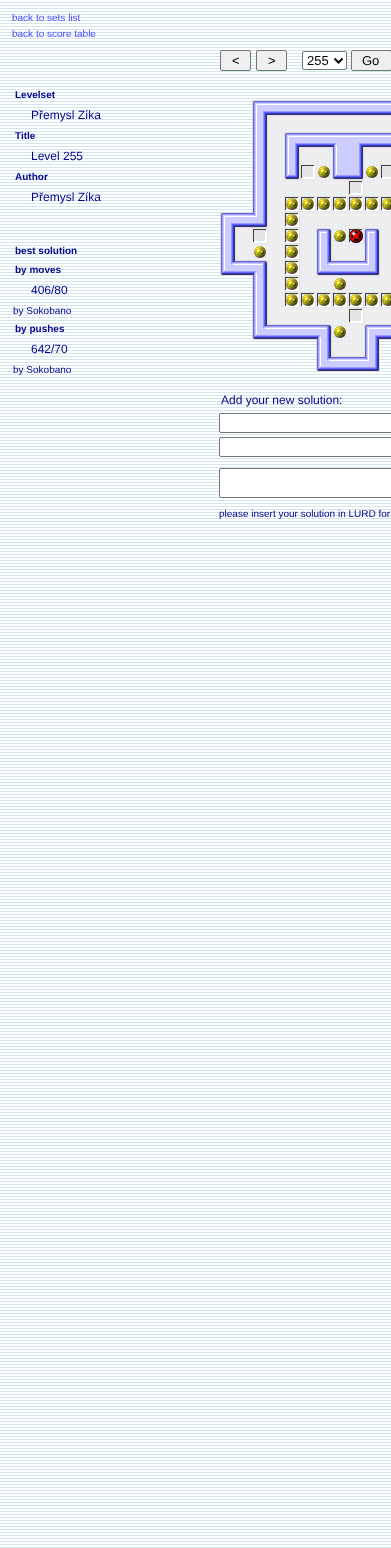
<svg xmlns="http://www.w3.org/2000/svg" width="391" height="1548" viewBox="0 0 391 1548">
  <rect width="100%" height="100%" fill="#fff"/>
  <image x="0" y="2" width="391" height="1546" href="img/1.png"/>
  <rect x="220.5" y="50.5" width="30" height="20" rx="1.5" fill="#efefef" stroke="#767676"/>
  <rect x="256.5" y="50.5" width="30" height="20" rx="1.5" fill="#efefef" stroke="#767676"/>
  <rect x="302.5" y="51.5" width="44" height="18" rx="1.5" fill="#fff" stroke="#767676"/>
  <path d="M334.5 58.5L338.5 62.5L342.5 58.5" fill="none" stroke="#000" stroke-width="2"/>
  <rect x="351.5" y="50.5" width="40" height="20" rx="1.5" fill="#efefef" stroke="#767676"/>
  <image x="252" y="100" width="16" height="16" href="img/2.png"/>
  <image x="268" y="100" width="16" height="16" href="img/3.png"/>
  <image x="284" y="100" width="16" height="16" href="img/3.png"/>
  <image x="300" y="100" width="16" height="16" href="img/3.png"/>
  <image x="316" y="100" width="16" height="16" href="img/3.png"/>
  <image x="332" y="100" width="16" height="16" href="img/3.png"/>
  <image x="348" y="100" width="16" height="16" href="img/3.png"/>
  <image x="364" y="100" width="16" height="16" href="img/3.png"/>
  <image x="380" y="100" width="11" height="16" href="img/4.png"/>
  <image x="252" y="116" width="16" height="16" href="img/5.png"/>
  <image x="268" y="116" width="16" height="16" href="img/6.png"/>
  <image x="284" y="116" width="16" height="16" href="img/6.png"/>
  <image x="300" y="116" width="16" height="16" href="img/6.png"/>
  <image x="316" y="116" width="16" height="16" href="img/6.png"/>
  <image x="332" y="116" width="16" height="16" href="img/6.png"/>
  <image x="348" y="116" width="16" height="16" href="img/6.png"/>
  <image x="364" y="116" width="16" height="16" href="img/6.png"/>
  <image x="380" y="116" width="11" height="16" href="img/7.png"/>
  <image x="252" y="132" width="16" height="16" href="img/5.png"/>
  <image x="268" y="132" width="16" height="16" href="img/6.png"/>
  <image x="284" y="132" width="16" height="16" href="img/2.png"/>
  <image x="300" y="132" width="16" height="16" href="img/3.png"/>
  <image x="316" y="132" width="16" height="16" href="img/3.png"/>
  <image x="332" y="132" width="16" height="16" href="img/8.png"/>
  <image x="348" y="132" width="16" height="16" href="img/8.png"/>
  <image x="364" y="132" width="16" height="16" href="img/3.png"/>
  <image x="380" y="132" width="11" height="16" href="img/4.png"/>
  <image x="252" y="148" width="16" height="16" href="img/5.png"/>
  <image x="268" y="148" width="16" height="16" href="img/6.png"/>
  <image x="284" y="148" width="16" height="16" href="img/5.png"/>
  <image x="300" y="148" width="16" height="16" href="img/6.png"/>
  <image x="316" y="148" width="16" height="16" href="img/6.png"/>
  <image x="332" y="148" width="16" height="16" href="img/9.png"/>
  <image x="348" y="148" width="16" height="16" href="img/10.png"/>
  <path d="M343 143h10v10H343z" fill="#ccf"/>
  <image x="364" y="148" width="16" height="16" href="img/6.png"/>
  <image x="380" y="148" width="11" height="16" href="img/7.png"/>
  <image x="252" y="164" width="16" height="16" href="img/5.png"/>
  <image x="268" y="164" width="16" height="16" href="img/6.png"/>
  <image x="284" y="164" width="16" height="16" href="img/11.png"/>
  <image x="300" y="164" width="16" height="16" href="img/12.png"/>
  <image x="316" y="164" width="16" height="16" href="img/13.png"/>
  <image x="332" y="164" width="16" height="16" href="img/14.png"/>
  <image x="348" y="164" width="16" height="16" href="img/15.png"/>
  <path d="M343 159h10v10H343z" fill="#ccf"/>
  <image x="364" y="164" width="16" height="16" href="img/13.png"/>
  <image x="380" y="164" width="11" height="16" href="img/16.png"/>
  <image x="252" y="180" width="16" height="16" href="img/5.png"/>
  <image x="268" y="180" width="16" height="16" href="img/6.png"/>
  <image x="284" y="180" width="16" height="16" href="img/6.png"/>
  <image x="300" y="180" width="16" height="16" href="img/6.png"/>
  <image x="316" y="180" width="16" height="16" href="img/6.png"/>
  <image x="332" y="180" width="16" height="16" href="img/6.png"/>
  <image x="348" y="180" width="16" height="16" href="img/12.png"/>
  <image x="364" y="180" width="16" height="16" href="img/6.png"/>
  <image x="380" y="180" width="11" height="16" href="img/7.png"/>
  <image x="252" y="196" width="16" height="16" href="img/5.png"/>
  <image x="268" y="196" width="16" height="16" href="img/6.png"/>
  <image x="284" y="196" width="16" height="16" href="img/17.png"/>
  <image x="300" y="196" width="16" height="16" href="img/17.png"/>
  <image x="316" y="196" width="16" height="16" href="img/17.png"/>
  <image x="332" y="196" width="16" height="16" href="img/17.png"/>
  <image x="348" y="196" width="16" height="16" href="img/17.png"/>
  <image x="364" y="196" width="16" height="16" href="img/17.png"/>
  <image x="380" y="196" width="11" height="16" href="img/18.png"/>
  <image x="220" y="212" width="16" height="16" href="img/2.png"/>
  <image x="236" y="212" width="16" height="16" href="img/3.png"/>
  <image x="252" y="212" width="16" height="16" href="img/15.png"/>
  <image x="268" y="212" width="16" height="16" href="img/6.png"/>
  <image x="284" y="212" width="16" height="16" href="img/17.png"/>
  <image x="300" y="212" width="16" height="16" href="img/6.png"/>
  <image x="316" y="212" width="16" height="16" href="img/6.png"/>
  <image x="332" y="212" width="16" height="16" href="img/6.png"/>
  <image x="348" y="212" width="16" height="16" href="img/6.png"/>
  <image x="364" y="212" width="16" height="16" href="img/6.png"/>
  <image x="380" y="212" width="11" height="16" href="img/7.png"/>
  <image x="220" y="228" width="16" height="16" href="img/5.png"/>
  <image x="236" y="228" width="16" height="16" href="img/6.png"/>
  <image x="252" y="228" width="16" height="16" href="img/12.png"/>
  <image x="268" y="228" width="16" height="16" href="img/6.png"/>
  <image x="284" y="228" width="16" height="16" href="img/17.png"/>
  <image x="300" y="228" width="16" height="16" href="img/6.png"/>
  <image x="316" y="228" width="16" height="16" href="img/19.png"/>
  <image x="332" y="228" width="16" height="16" href="img/13.png"/>
  <image x="348" y="228" width="16" height="16" href="img/20.png"/>
  <image x="364" y="228" width="16" height="16" href="img/19.png"/>
  <image x="380" y="228" width="11" height="16" href="img/7.png"/>
  <image x="220" y="244" width="16" height="16" href="img/5.png"/>
  <image x="236" y="244" width="16" height="16" href="img/6.png"/>
  <image x="252" y="244" width="16" height="16" href="img/13.png"/>
  <image x="268" y="244" width="16" height="16" href="img/6.png"/>
  <image x="284" y="244" width="16" height="16" href="img/17.png"/>
  <image x="300" y="244" width="16" height="16" href="img/6.png"/>
  <image x="316" y="244" width="16" height="16" href="img/5.png"/>
  <image x="332" y="244" width="16" height="16" href="img/6.png"/>
  <image x="348" y="244" width="16" height="16" href="img/6.png"/>
  <image x="364" y="244" width="16" height="16" href="img/5.png"/>
  <image x="380" y="244" width="11" height="16" href="img/7.png"/>
  <image x="220" y="260" width="16" height="16" href="img/14.png"/>
  <image x="236" y="260" width="16" height="16" href="img/3.png"/>
  <image x="252" y="260" width="16" height="16" href="img/21.png"/>
  <image x="268" y="260" width="16" height="16" href="img/6.png"/>
  <image x="284" y="260" width="16" height="16" href="img/17.png"/>
  <image x="300" y="260" width="16" height="16" href="img/6.png"/>
  <image x="316" y="260" width="16" height="16" href="img/14.png"/>
  <image x="332" y="260" width="16" height="16" href="img/3.png"/>
  <image x="348" y="260" width="16" height="16" href="img/3.png"/>
  <image x="364" y="260" width="16" height="16" href="img/15.png"/>
  <image x="380" y="260" width="11" height="16" href="img/7.png"/>
  <image x="252" y="276" width="16" height="16" href="img/5.png"/>
  <image x="268" y="276" width="16" height="16" href="img/6.png"/>
  <image x="284" y="276" width="16" height="16" href="img/17.png"/>
  <image x="300" y="276" width="16" height="16" href="img/6.png"/>
  <image x="316" y="276" width="16" height="16" href="img/6.png"/>
  <image x="332" y="276" width="16" height="16" href="img/13.png"/>
  <image x="348" y="276" width="16" height="16" href="img/6.png"/>
  <image x="364" y="276" width="16" height="16" href="img/6.png"/>
  <image x="380" y="276" width="11" height="16" href="img/7.png"/>
  <image x="252" y="292" width="16" height="16" href="img/5.png"/>
  <image x="268" y="292" width="16" height="16" href="img/6.png"/>
  <image x="284" y="292" width="16" height="16" href="img/17.png"/>
  <image x="300" y="292" width="16" height="16" href="img/17.png"/>
  <image x="316" y="292" width="16" height="16" href="img/17.png"/>
  <image x="332" y="292" width="16" height="16" href="img/17.png"/>
  <image x="348" y="292" width="16" height="16" href="img/17.png"/>
  <image x="364" y="292" width="16" height="16" href="img/17.png"/>
  <image x="380" y="292" width="11" height="16" href="img/18.png"/>
  <image x="252" y="308" width="16" height="16" href="img/5.png"/>
  <image x="268" y="308" width="16" height="16" href="img/6.png"/>
  <image x="284" y="308" width="16" height="16" href="img/6.png"/>
  <image x="300" y="308" width="16" height="16" href="img/6.png"/>
  <image x="316" y="308" width="16" height="16" href="img/6.png"/>
  <image x="332" y="308" width="16" height="16" href="img/6.png"/>
  <image x="348" y="308" width="16" height="16" href="img/12.png"/>
  <image x="364" y="308" width="16" height="16" href="img/6.png"/>
  <image x="380" y="308" width="11" height="16" href="img/7.png"/>
  <image x="252" y="324" width="16" height="16" href="img/14.png"/>
  <image x="268" y="324" width="16" height="16" href="img/3.png"/>
  <image x="284" y="324" width="16" height="16" href="img/3.png"/>
  <image x="300" y="324" width="16" height="16" href="img/3.png"/>
  <image x="316" y="324" width="16" height="16" href="img/21.png"/>
  <image x="332" y="324" width="16" height="16" href="img/13.png"/>
  <image x="348" y="324" width="16" height="16" href="img/6.png"/>
  <image x="364" y="324" width="16" height="16" href="img/2.png"/>
  <image x="380" y="324" width="11" height="16" href="img/4.png"/>
  <image x="316" y="340" width="16" height="16" href="img/5.png"/>
  <image x="332" y="340" width="16" height="16" href="img/6.png"/>
  <image x="348" y="340" width="16" height="16" href="img/6.png"/>
  <image x="364" y="340" width="16" height="16" href="img/5.png"/>
  <image x="316" y="356" width="16" height="16" href="img/14.png"/>
  <image x="332" y="356" width="16" height="16" href="img/3.png"/>
  <image x="348" y="356" width="16" height="16" href="img/3.png"/>
  <image x="364" y="356" width="16" height="16" href="img/15.png"/>
  <rect x="219.5" y="413.5" width="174" height="19" rx="1.5" fill="#fff" stroke="#767676"/>
  <rect x="219.5" y="437.5" width="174" height="19" rx="1.5" fill="#fff" stroke="#767676"/>
  <rect x="219.5" y="468.5" width="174" height="29" rx="1.5" fill="#fff" stroke="#767676"/>
  <g font-family="Liberation Sans" font-size="10" fill="#4848ff">
    <text x="12" y="21">back to sets list</text>
    <text x="12" y="37">back to score table</text>
  </g>
  <text x="15" y="98" font-family="Liberation Sans" font-size="10" font-weight="bold" fill="#05058b">Levelset</text>
  <text x="31" y="119" font-family="Liberation Sans" font-size="12" fill="#05058b">Přemysl Zíka</text>
  <text x="15" y="139" font-family="Liberation Sans" font-size="10" font-weight="bold" fill="#05058b">Title</text>
  <text x="31" y="160" font-family="Liberation Sans" font-size="12" fill="#05058b">Level 255</text>
  <text x="15" y="180" font-family="Liberation Sans" font-size="10" font-weight="bold" fill="#05058b">Author</text>
  <text x="31" y="201" font-family="Liberation Sans" font-size="12" fill="#05058b">Přemysl Zíka</text>
  <g font-family="Liberation Sans" font-size="10" font-weight="bold" fill="#05058b">
    <text x="15" y="254">best solution</text>
    <text x="15" y="273">by moves</text>
  </g>
  <text x="31" y="294" font-family="Liberation Sans" font-size="12" fill="#05058b">406/80</text>
  <text x="13" y="314" font-family="Liberation Sans" font-size="10" fill="#05058b">by Sokobano</text>
  <text x="15" y="332" font-family="Liberation Sans" font-size="10" font-weight="bold" fill="#05058b">by pushes</text>
  <text x="31" y="353" font-family="Liberation Sans" font-size="12" fill="#05058b">642/70</text>
  <text x="13" y="373" font-family="Liberation Sans" font-size="10" fill="#05058b">by Sokobano</text>
  <g font-family="Liberation Sans" font-size="13" fill="#000">
    <text x="232" y="65">&lt;</text>
    <text x="268" y="65">&gt;</text>
    <text x="307" y="65">255</text>
    <text x="362" y="65">Go</text>
  </g>
  <text x="221" y="404" font-family="Liberation Sans" font-size="12" fill="#05058b">Add your new solution:</text>
  <text x="219" y="517" font-family="Liberation Sans" font-size="10" fill="#05058b">please insert your solution in LURD for</text>
</svg>
